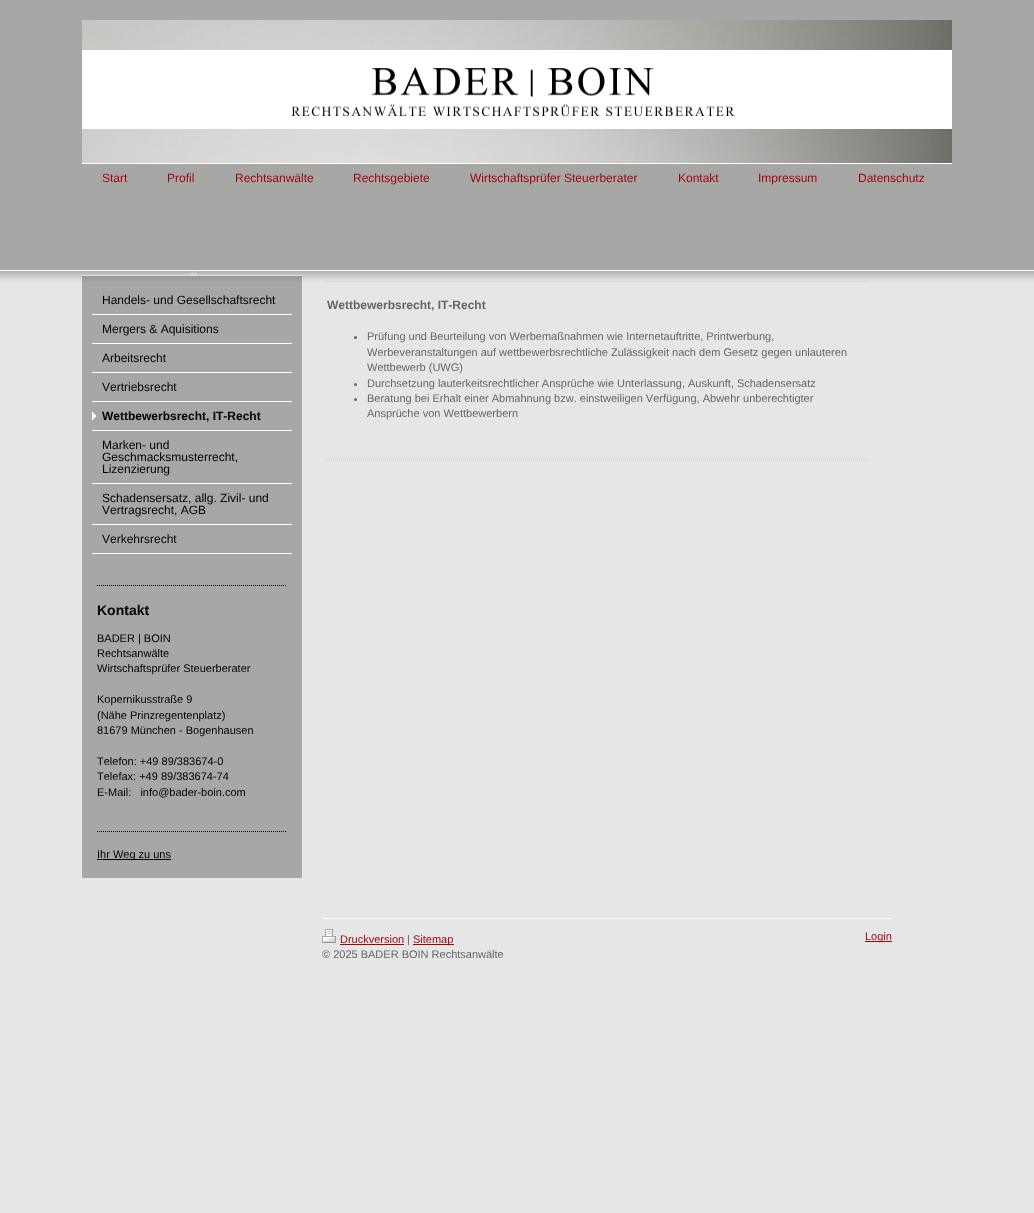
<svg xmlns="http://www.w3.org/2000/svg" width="1034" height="1213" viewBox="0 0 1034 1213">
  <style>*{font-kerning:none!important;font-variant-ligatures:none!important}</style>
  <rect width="100%" height="100%" fill="#e6e6e6"/>
  <path d="M0 0h1034v270H0z" fill="#a7a7a6"/>
  <path d="M82 163h870v1H82z" fill="#fff"/>
  <image x="82" y="20" width="870" height="143" href="img/1.png"/>
  <path d="M82 50h870v79H82z" fill="#fff"/>
  <image x="291" y="67" width="444" height="50" href="img/2.png"/>
  <image x="82" y="271" width="220" height="5" href="img/4.png"/>
  <path d="M82 276h220v602H82z" fill="#a7a7a6"/>
  <path d="M327 281.5H867" fill="none" stroke="#ccc" stroke-dasharray="1 1"/>
  <image x="0" y="270" width="1034" height="12" href="img/3.png"/>
  <path d="M92 314h200v1H92z" fill="#fff"/>
  <path d="M92 343h200v1H92z" fill="#fff"/>
  <path d="M92 372h200v1H92z" fill="#fff"/>
  <path d="M92 401h200v1H92z" fill="#fff"/>
  <image x="92" y="412" width="4" height="8" href="img/5.png"/>
  <path d="M92 430h200v1H92z" fill="#fff"/>
  <path d="M92 483h200v1H92z" fill="#fff"/>
  <path d="M92 524h200v1H92z" fill="#fff"/>
  <path d="M92 553h200v1H92z" fill="#fff"/>
  <path d="M97 585.5H287" fill="none" stroke="#000" stroke-dasharray="1 1"/>
  <path d="M97 831.5H287" fill="none" stroke="#000" stroke-dasharray="1 1"/>
  <path d="M97 859h74v1H97z" fill="#000"/>
  <circle cx="355.5" cy="337.5" r="1.5" fill="#666"/>
  <circle cx="355.5" cy="384.5" r="1.5" fill="#666"/>
  <circle cx="355.5" cy="399.5" r="1.5" fill="#666"/>
  <path d="M327 459.5H867" fill="none" stroke="#ccc" stroke-dasharray="1 1"/>
  <path d="M322 918h570v1H322z" fill="#fff"/>
  <image x="322" y="929" width="14" height="14" href="img/6.png"/>
  <path d="M340 944h64v1H340z" fill="#9f0408"/>
  <path d="M413 944h41v1H413z" fill="#9f0408"/>
  <path d="M865 941h27v1H865z" fill="#9f0408"/>
  <g font-family="Liberation Sans" font-size="12" fill="#9f0408">
    <text x="102" y="182">Start</text>
    <text x="167" y="182">Profil</text>
    <text x="235" y="182">Rechtsanwälte</text>
    <text x="353" y="182">Rechtsgebiete</text>
    <text x="470" y="182">Wirtschaftsprüfer Steuerberater</text>
    <text x="678" y="182">Kontakt</text>
    <text x="758" y="182">Impressum</text>
    <text x="858" y="182">Datenschutz</text>
  </g>
  <g font-family="Liberation Sans" font-size="12" fill="#000">
    <text x="102" y="304">Handels- und Gesellschaftsrecht</text>
    <text x="102" y="333">Mergers &amp; Aquisitions</text>
    <text x="102" y="362">Arbeitsrecht</text>
    <text x="102" y="391">Vertriebsrecht</text>
  </g>
  <text x="102" y="420" font-family="Liberation Sans" font-size="12" font-weight="bold" fill="#000">Wettbewerbsrecht, IT-Recht</text>
  <g font-family="Liberation Sans" font-size="12" fill="#000">
    <text x="102" y="449">Marken- und</text>
    <text x="102" y="461">Geschmacksmusterrecht,</text>
    <text x="102" y="473">Lizenzierung</text>
    <text x="102" y="502">Schadensersatz, allg. Zivil- und</text>
    <text x="102" y="514">Vertragsrecht, AGB</text>
    <text x="102" y="543">Verkehrsrecht</text>
  </g>
  <text x="97" y="615" font-family="Liberation Sans" font-size="14" font-weight="bold" fill="#000">Kontakt</text>
  <g font-family="Liberation Sans" font-size="11" fill="#000">
    <text x="97" y="642">BADER | BOIN</text>
    <text x="97" y="657">Rechtsanwälte</text>
    <text x="97" y="672">Wirtschaftsprüfer Steuerberater</text>
    <text x="97" y="703">Kopernikusstraße 9</text>
    <text x="97" y="719">(Nähe Prinzregentenplatz)</text>
    <text x="97" y="734">81679 München - Bogenhausen</text>
    <text x="97" y="765">Telefon: +49 89/383674-0</text>
    <text x="97" y="780">Telefax: +49 89/383674-74</text>
    <text x="97" y="796" xml:space="preserve">E-Mail:   info@bader-boin.com</text>
    <text x="97" y="858">Ihr Weg zu uns</text>
  </g>
  <text x="327" y="309" font-family="Liberation Sans" font-size="12" font-weight="bold" fill="#666">Wettbewerbsrecht, IT-Recht</text>
  <g font-family="Liberation Sans" font-size="11" fill="#666">
    <text x="367" y="340">Prüfung und Beurteilung von Werbemaßnahmen wie Internetauftritte, Printwerbung,</text>
    <text x="367" y="356">Werbeveranstaltungen auf wettbewerbsrechtliche Zulässigkeit nach dem Gesetz gegen unlauteren</text>
    <text x="367" y="371">Wettbewerb (UWG)</text>
    <text x="367" y="387">Durchsetzung lauterkeitsrechtlicher Ansprüche wie Unterlassung, Auskunft, Schadensersatz</text>
    <text x="367" y="402">Beratung bei Erhalt einer Abmahnung bzw. einstweiligen Verfügung, Abwehr unberechtigter</text>
    <text x="367" y="417">Ansprüche von Wettbewerbern</text>
  </g>
  <text x="340" y="943" font-family="Liberation Sans" font-size="11" fill="#9f0408">Druckversion</text>
  <text x="407" y="943" font-family="Liberation Sans" font-size="11" fill="#666">|</text>
  <text x="413" y="943" font-family="Liberation Sans" font-size="11" fill="#9f0408">Sitemap</text>
  <text x="322" y="958" font-family="Liberation Sans" font-size="11" fill="#666">© 2025 BADER BOIN Rechtsanwälte</text>
  <text x="865" y="940" font-family="Liberation Sans" font-size="11" fill="#9f0408">Login</text>
</svg>
